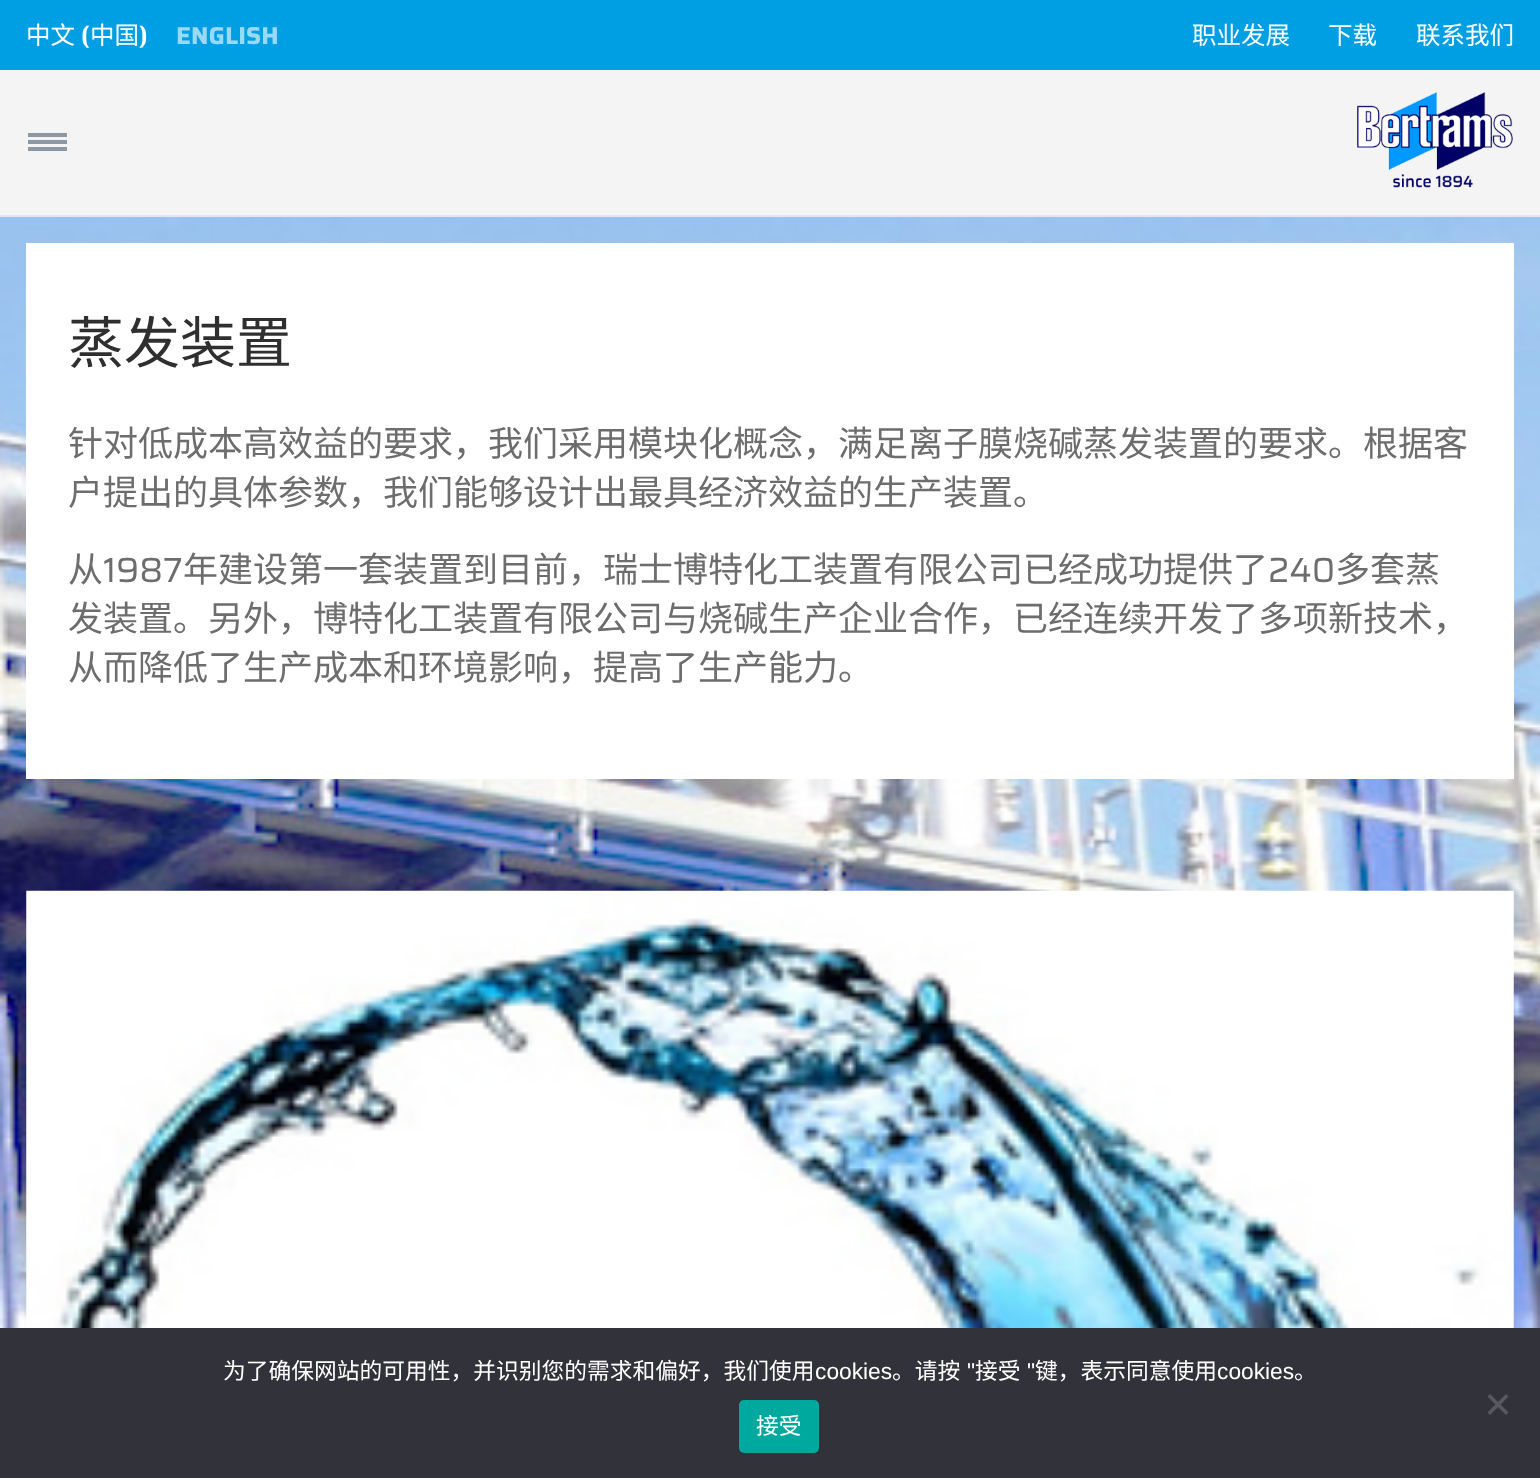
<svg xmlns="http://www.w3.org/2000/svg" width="1540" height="1478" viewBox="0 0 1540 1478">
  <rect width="100%" height="100%" fill="#fff"/>
  <path d="M0 0h1540v70H0z" fill="#009fe3"/>
  <path d="M0 215h1540v2H0z" fill="#e3e6f0"/>
  <path d="M0 70h1540v145H0z" fill="#f4f4f4"/>
  <path d="M28 133h39v4H28z" fill="#8c98a4"/>
  <path d="M28 140h39v4H28z" fill="#8c98a4"/>
  <path d="M28 147h39v4H28z" fill="#8c98a4"/>
  <image x="1357" y="92" width="156" height="96" href="img/1.png"/>
  <image x="0" y="217" width="1540" height="1111" href="img/2.png"/>
  <path d="M26 243h1488v536H26z" fill="#fff"/>
  <image x="26" y="890" width="1488" height="438" href="img/3.png"/>
  <path d="M0 1328h1540v150H0z" fill="#32323a"/>
  <path d="M1506 1394L1508.5 1396.5L1490 1415L1487.5 1412.5Z" fill="#59595d"/>
  <path d="M1487.5 1396.5L1490 1394L1508.5 1412.5L1506 1415Z" fill="#59595d"/>
  <rect x="739" y="1400" width="80" height="53" rx="5" fill="#00a99d"/>
  <text x="26" y="44" font-family="Noto Sans CJK SC" font-size="24.5" fill="#fff">中文</text>
  <text x="81" y="44" font-family="Saira" font-size="24.5" font-weight="bold" fill="#fff">(</text>
  <text x="90" y="44" font-family="Noto Sans CJK SC" font-size="24.5" fill="#fff">中国</text>
  <text x="139" y="44" font-family="Saira" font-size="24.5" font-weight="bold" fill="#fff">)</text>
  <text x="176" y="44" font-family="Saira" font-size="24.5" font-weight="bold" fill="#99d9f4">ENGLISH</text>
  <g font-family="Noto Sans CJK SC" font-size="24.5" fill="#fff">
    <text x="1192" y="44">职业发展</text>
    <text x="1328" y="44">下载</text>
    <text x="1416" y="44">联系我们</text>
  </g>
  <text x="68" y="363" font-family="Noto Sans CJK SC" font-size="56" fill="#2f2f2f">蒸发装置</text>
  <g font-family="Noto Sans CJK SC" font-size="35" fill="#6d6d6d">
    <text x="68" y="456">针对低成本高效益的要求，我们采用模块化概念，满足离子膜烧碱蒸发装置的要求。根据客</text>
    <text x="68" y="505">户提出的具体参数，我们能够设计出最具经济效益的生产装置。</text>
    <text x="68" y="582">从</text>
  </g>
  <text x="103" y="582" font-family="Saira" font-size="35" fill="#6d6d6d">1987</text>
  <text x="183" y="582" font-family="Noto Sans CJK SC" font-size="35" fill="#6d6d6d">年建设第一套装置到目前，瑞士博特化工装置有限公司已经成功提供了</text>
  <text x="1268" y="582" font-family="Saira" font-size="35" fill="#6d6d6d">240</text>
  <g font-family="Noto Sans CJK SC" font-size="35" fill="#6d6d6d">
    <text x="1335" y="582">多套蒸</text>
    <text x="68" y="631">发装置。另外，博特化工装置有限公司与烧碱生产企业合作，已经连续开发了多项新技术，</text>
    <text x="68" y="680">从而降低了生产成本和环境影响，提高了生产能力。</text>
  </g>
  <text x="223" y="1379" font-family="Noto Sans CJK SC" font-size="22.75" fill="#fff">为了确保网站的可用性，并识别您的需求和偏好，我们使用</text>
  <text x="815" y="1379" font-family="Liberation Sans" font-size="22.75" fill="#fff">cookies</text>
  <text x="892" y="1379" font-family="Noto Sans CJK SC" font-size="22.75" fill="#fff">。请按</text>
  <text x="967" y="1379" font-family="Liberation Sans" font-size="22.75" fill="#fff">"</text>
  <text x="975" y="1379" font-family="Noto Sans CJK SC" font-size="22.75" fill="#fff">接受</text>
  <text x="1027" y="1379" font-family="Liberation Sans" font-size="22.75" fill="#fff">"</text>
  <text x="1035" y="1379" font-family="Noto Sans CJK SC" font-size="22.75" fill="#fff">键，表示同意使用</text>
  <text x="1217" y="1379" font-family="Liberation Sans" font-size="22.75" fill="#fff">cookies</text>
  <g font-family="Noto Sans CJK SC" font-size="22.75" fill="#fff">
    <text x="1294" y="1379">。</text>
    <text x="756" y="1434">接受</text>
  </g>
</svg>
